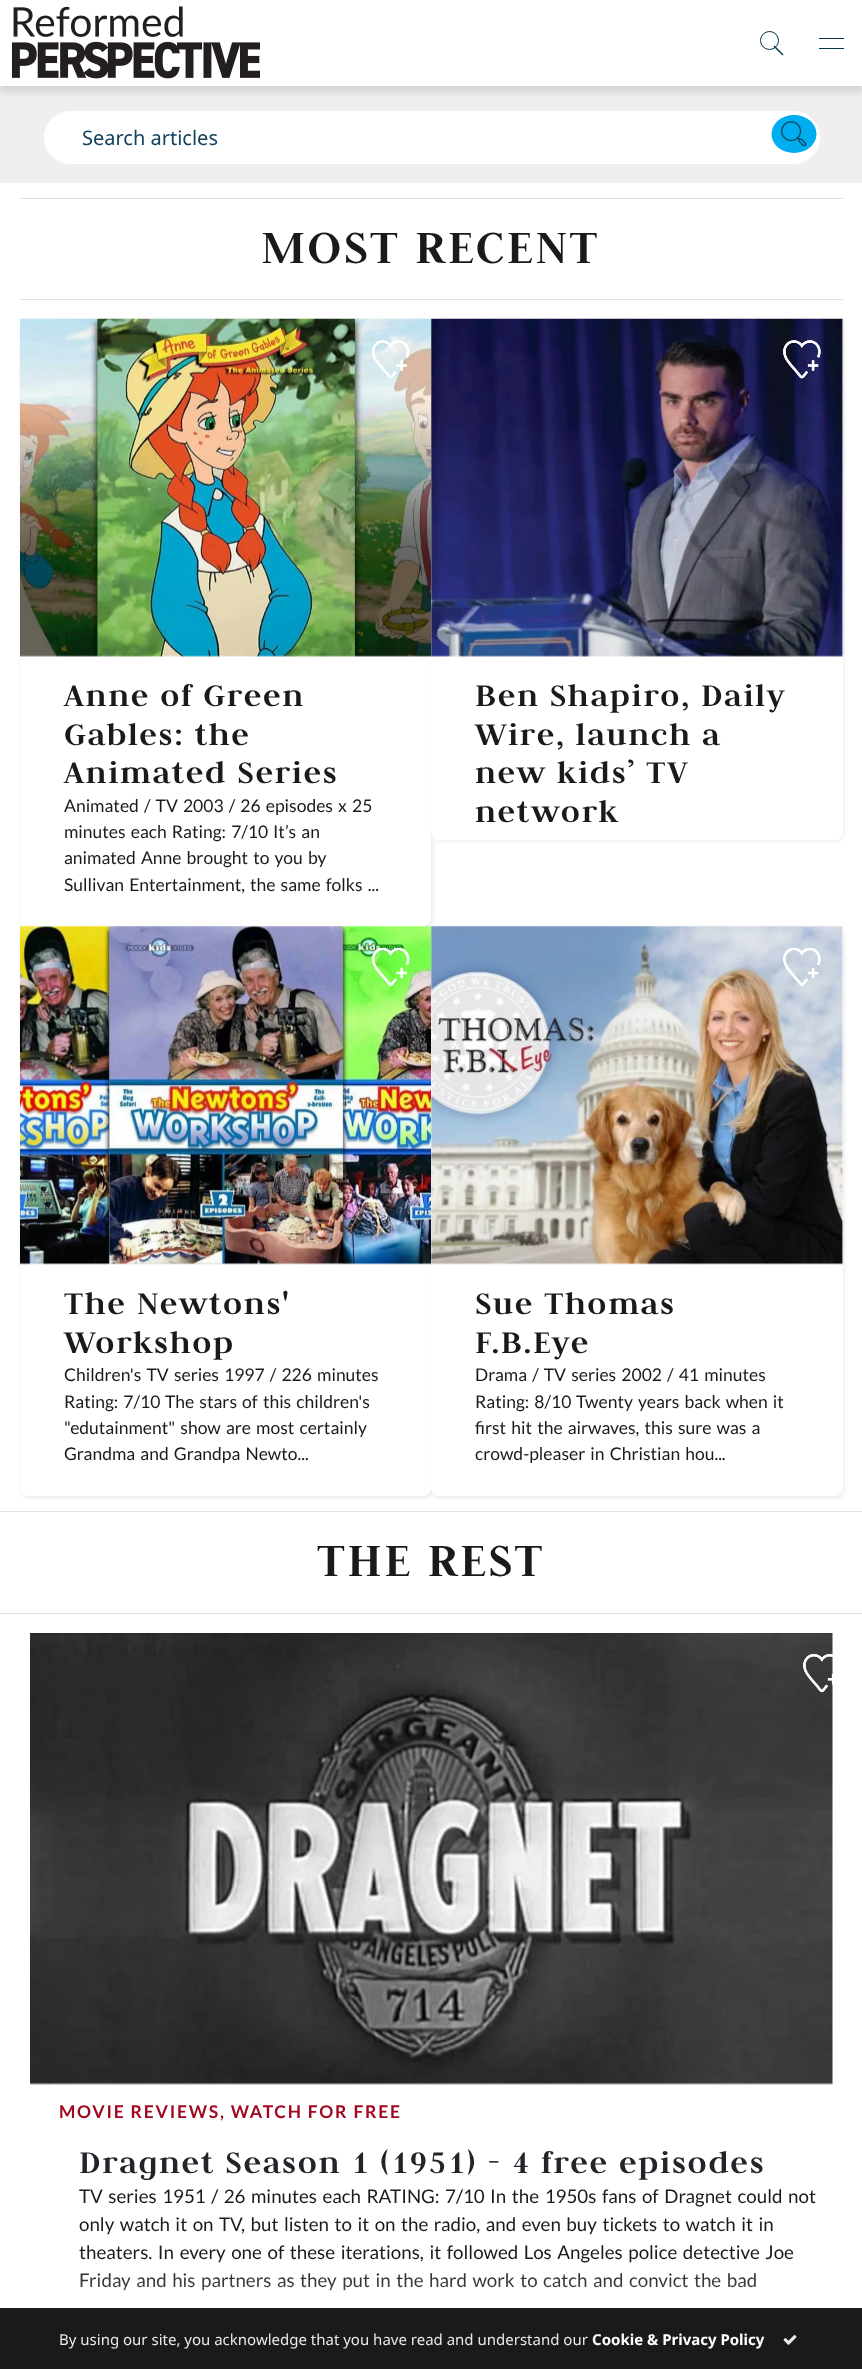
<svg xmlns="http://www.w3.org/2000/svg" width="862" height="2369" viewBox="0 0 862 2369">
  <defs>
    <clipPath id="clip1"><path d="M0 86h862v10H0z"/></clipPath>
    <clipPath id="clip2"><path d="M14 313H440V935H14ZM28 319H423C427.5 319 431 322.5 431 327V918C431 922.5 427.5 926 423 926H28C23.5 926 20 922.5 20 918V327C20 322.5 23.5 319 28 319Z" clip-rule="evenodd"/></clipPath>
    <linearGradient id="g1" gradientUnits="userSpaceOnUse" x1="431" y1="2261" x2="431" y2="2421"><stop offset="0" stop-color="#fff" stop-opacity="0"/><stop offset="1" stop-color="#fff"/></linearGradient>
  </defs>
  <rect width="100%" height="100%" fill="#fff"/>
  <path d="M0 86h862v97H0z" fill="#f0eeef"/>
  <g clip-path="url(#clip1)">
    <path d="M0 6h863v87H0z" fill="#0000001a" filter="blur(3px)"/>
  </g>
  <image x="11" y="6" width="249" height="73" href="img/1.png"/>
  <path d="M774.5 45.5L783.5 54.5L782.5 55.5L773.5 46.5Z" fill="#00374b"/>
  <circle cx="769.5" cy="40.5" r="9" fill="none" stroke="#00374b"/>
  <path d="M819 38h25v1H819z" fill="#00374b"/>
  <path d="M819 48h25v1H819z" fill="#00374b"/>
  <rect x="44" y="111" width="776" height="53" rx="26.5" fill="#fff"/>
  <ellipse cx="794" cy="134" rx="22.5" ry="19" fill="#00aeef"/>
  <image x="781" y="121" width="26" height="26" href="img/2.png"/>
  <path d="M20 198h823v1H20z" fill="#dbe3e7"/>
  <path d="M20 299h823v1H20z" fill="#dbe3e7"/>
  <g clip-path="url(#clip2)">
    <rect x="21" y="320" width="412" height="608" rx="8" fill="#3c3c3c1a" filter="blur(2px)"/>
  </g>
  <image x="20" y="318" width="412" height="339" href="img/3.png"/>
  <image x="371" y="340" width="39" height="39" href="img/4.png"/>
  <rect x="433" y="320" width="411" height="521" rx="8" fill="#3c3c3c1a" filter="blur(2px)"/>
  <rect x="431" y="319" width="412" height="521" rx="8" fill="#fff"/>
  <image x="431" y="318" width="413" height="339" href="img/5.png"/>
  <image x="783" y="340" width="38" height="39" href="img/6.png"/>
  <rect x="21" y="928" width="412" height="570" rx="8" fill="#3c3c3c1a" filter="blur(2px)"/>
  <rect x="20" y="926" width="411" height="570" rx="8" fill="#fff"/>
  <image x="20" y="926" width="412" height="339" href="img/7.png"/>
  <image x="371" y="947" width="39" height="39" href="img/8.png"/>
  <rect x="433" y="928" width="411" height="570" rx="8" fill="#3c3c3c1a" filter="blur(2px)"/>
  <rect x="431" y="926" width="412" height="570" rx="8" fill="#fff"/>
  <image x="431" y="926" width="413" height="339" href="img/9.png"/>
  <image x="783" y="947" width="38" height="39" href="img/10.png"/>
  <path d="M0 1511h862v1H0z" fill="#dbe3e7"/>
  <path d="M0 1613h862v1H0z" fill="#dbe3e7"/>
  <image x="30" y="1633" width="803" height="452" href="img/11.png"/>
  <image x="803" y="1654" width="30" height="39" href="img/12.png"/>
  <path d="M0 2308h862v61H0z" fill="#1a1a1a"/>
  <image x="783" y="2335" width="14" height="10" href="img/13.png"/>
  <text x="82" y="145" font-family="Noto Sans" font-size="20" fill="#12415d">Search articles</text>
  <text x="261" y="263" font-family="Judson" font-size="51.25" font-weight="bold" letter-spacing="2.5" fill="#1a1a1a">MOST RECENT</text>
  <g font-family="Judson" font-size="35" font-weight="bold" letter-spacing="1.75" fill="#1a1a1a">
    <text x="64" y="706">Anne of Green</text>
    <text x="64" y="745">Gables: the</text>
    <text x="64" y="783">Animated Series</text>
  </g>
  <g font-family="Lato" font-size="17.5" fill="#1a1a1a">
    <text x="64" y="812" word-spacing="1.75">Animated / TV 2003 / 26 episodes x 25</text>
    <text x="64" y="838" word-spacing="1.75">minutes each Rating: 7/10</text>
    <text x="273" y="838" word-spacing="1.75">It’s an</text>
    <text x="64" y="864" word-spacing="1.75">animated Anne brought to you by</text>
    <text x="64" y="891" word-spacing="1.75">Sullivan Entertainment, the same folks ...</text>
  </g>
  <g font-family="Judson" font-size="35" font-weight="bold" letter-spacing="1.75" fill="#1a1a1a">
    <text x="475" y="706">Ben Shapiro, Daily</text>
    <text x="475" y="745">Wire, launch a</text>
    <text x="475" y="783">new kids’ TV</text>
    <text x="475" y="822">network</text>
    <text x="64" y="1314">The Newtons'</text>
    <text x="64" y="1353">Workshop</text>
  </g>
  <g font-family="Lato" font-size="17.5" fill="#1a1a1a">
    <text x="64" y="1381" word-spacing="1.75">Children's TV series 1997 / 226 minutes</text>
    <text x="64" y="1408" word-spacing="1.75">Rating: 7/10</text>
    <text x="165" y="1408" word-spacing="1.75">The stars of this children's</text>
    <text x="64" y="1434" word-spacing="1.75">"edutainment" show are most certainly</text>
    <text x="64" y="1460" word-spacing="1.75">Grandma and Grandpa Newto...</text>
  </g>
  <g font-family="Judson" font-size="35" font-weight="bold" letter-spacing="1.75" fill="#1a1a1a">
    <text x="475" y="1314">Sue Thomas</text>
    <text x="475" y="1353">F.B.Eye</text>
  </g>
  <g font-family="Lato" font-size="17.5" fill="#1a1a1a">
    <text x="475" y="1381" word-spacing="1.75">Drama / TV series 2002 / 41 minutes</text>
    <text x="475" y="1408" word-spacing="1.75">Rating: 8/10</text>
    <text x="576" y="1408" word-spacing="1.75">Twenty years back when it</text>
    <text x="475" y="1434" word-spacing="1.75">first hit the airwaves, this sure was a</text>
    <text x="475" y="1460" word-spacing="1.75">crowd-pleaser in Christian hou...</text>
  </g>
  <text x="317" y="1576" font-family="Judson" font-size="51.25" font-weight="bold" letter-spacing="2.5" fill="#1a1a1a">THE REST</text>
  <text x="59" y="2118" font-family="Lato" font-size="17.5" font-weight="bold" letter-spacing="1.75" fill="#a10820">MOVIE REVIEWS, WATCH FOR FREE</text>
  <text x="79" y="2173" font-family="Judson" font-size="35" font-weight="bold" letter-spacing="1.75" fill="#212529">Dragnet Season 1 (1951) - 4 free episodes</text>
  <g font-family="Lato" font-size="18.75" fill="#1a1a1a">
    <text x="79" y="2203" word-spacing="1.9">TV series 1951 / 26 minutes each RATING: 7/10</text>
    <text x="490" y="2203" word-spacing="2">In the 1950s fans of Dragnet could not</text>
    <text x="79" y="2231" word-spacing="1.9">only watch it on TV, but listen to it on the radio, and even buy tickets to watch it in</text>
    <text x="79" y="2259" word-spacing="2">theaters. In every one of these iterations, it followed Los Angeles police detective Joe</text>
    <text x="79" y="2287" word-spacing="1.9">Friday and his partners as they put in the hard work to catch and convict the bad</text>
  </g>
  <path d="M80 2273h676v18H80z" fill="url(#g1)"/>
  <text x="59" y="2345" font-family="Noto Sans" font-size="15" fill="#e8e8e8">By using our site, you acknowledge that you have read and understand our</text>
  <text x="592" y="2345" font-family="Noto Sans" font-size="15" font-weight="bold" fill="#fff">Cookie &amp; Privacy Policy</text>
</svg>
